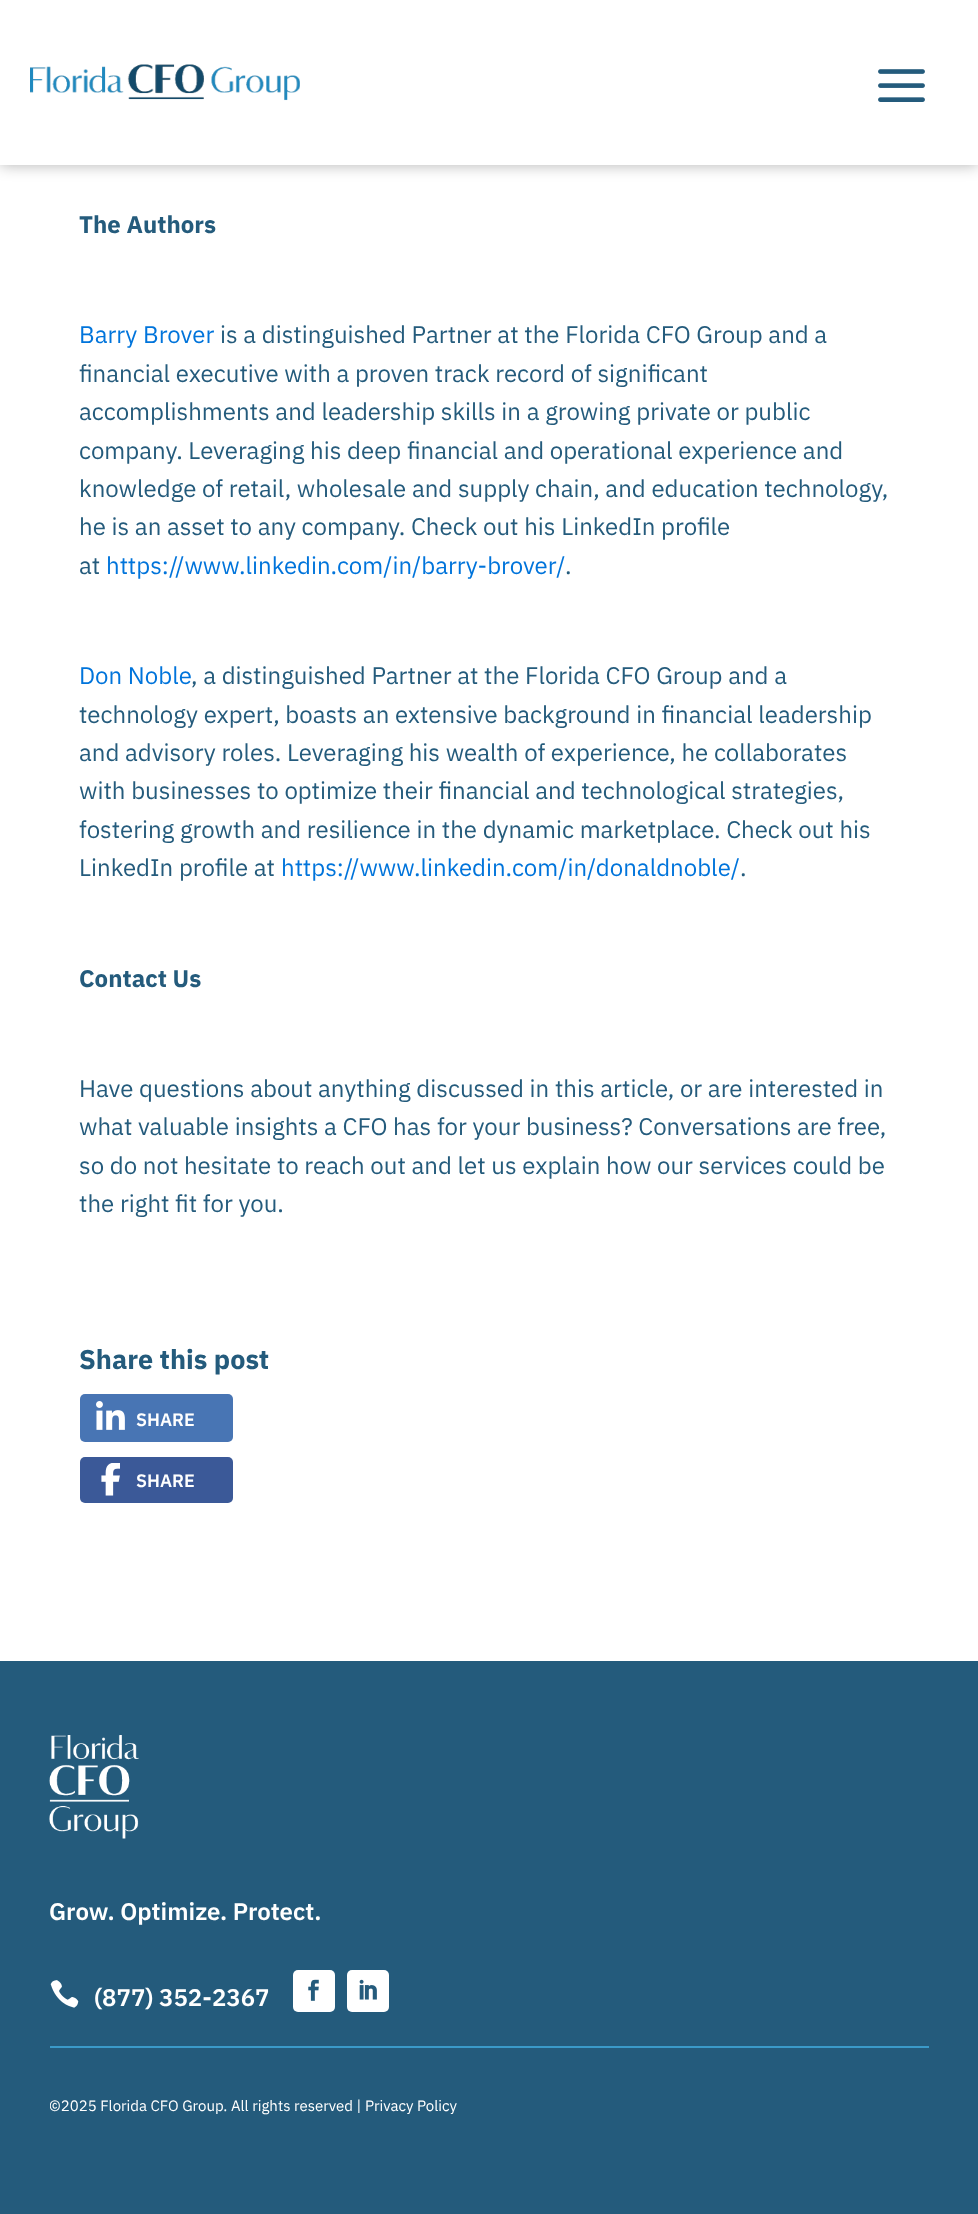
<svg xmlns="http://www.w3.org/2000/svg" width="978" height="2214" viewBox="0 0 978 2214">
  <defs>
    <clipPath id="clip1"><path d="M50 2048h879v91H50z"/></clipPath>
  </defs>
  <rect width="100%" height="100%" fill="#fff"/>
  <path d="M0 0h978v165H0z" fill="#0000004d" filter="blur(7.5px)"/>
  <path d="M0 0h978v165H0z" fill="#fff"/>
  <image x="30" y="64" width="270" height="37" href="img/1.png"/>
  <image x="878" y="69" width="47" height="33" href="img/2.png"/>
  <rect x="80" y="1394" width="153" height="48" rx="5" fill="#4875b4"/>
  <image x="96" y="1401" width="29" height="29" href="img/3.png"/>
  <rect x="80" y="1457" width="153" height="46" rx="5" fill="#3b5998"/>
  <image x="101" y="1463" width="19" height="33" href="img/4.png"/>
  <path d="M0 1661h978v553H0z" fill="#245b7c"/>
  <image x="49" y="1735" width="90" height="104" href="img/5.png"/>
  <image x="50" y="1980" width="29" height="28" href="img/6.png"/>
  <rect x="293" y="1970" width="42" height="42" rx="5" fill="#fff"/>
  <image x="308" y="1979" width="11" height="22" href="img/7.png"/>
  <rect x="347" y="1970" width="42" height="42" rx="5" fill="#fff"/>
  <image x="359" y="1979" width="18" height="21" href="img/8.png"/>
  <path d="M50 2046h879v2H50z" fill="#3b9ac9"/>
  <text x="79" y="233" font-family="IBM Plex Sans" font-size="24" font-weight="bold" fill="#245b7c">The Authors</text>
  <text x="79" y="343" font-family="IBM Plex Sans" font-size="24" fill="#0074db">Barry Brover</text>
  <g font-family="IBM Plex Sans" font-size="24" fill="#245b7c">
    <text x="220" y="343">is a distinguished Partner at the Florida CFO Group and a</text>
    <text x="79" y="382">financial executive with a proven track record of significant</text>
    <text x="79" y="420">accomplishments and leadership skills in a growing private or public</text>
    <text x="79" y="459">company. Leveraging his deep financial and operational experience and</text>
    <text x="79" y="497">knowledge of retail, wholesale and supply chain, and education technology,</text>
    <text x="79" y="535">he is an asset to any company. Check out his LinkedIn profile</text>
    <text x="79" y="574">at</text>
  </g>
  <text x="106" y="574" font-family="IBM Plex Sans" font-size="24" fill="#0074db">https://www.linkedin.com/in/barry-brover/</text>
  <text x="565" y="574" font-family="IBM Plex Sans" font-size="24" fill="#245b7c">.</text>
  <text x="79" y="684" font-family="IBM Plex Sans" font-size="24" fill="#0074db">Don Noble</text>
  <g font-family="IBM Plex Sans" font-size="24" fill="#245b7c">
    <text x="191" y="684">, a distinguished Partner at the Florida CFO Group and a</text>
    <text x="79" y="723">technology expert, boasts an extensive background in financial leadership</text>
    <text x="79" y="761">and advisory roles. Leveraging his wealth of experience, he collaborates</text>
    <text x="79" y="799">with businesses to optimize their financial and technological strategies,</text>
    <text x="79" y="838">fostering growth and resilience in the dynamic marketplace. Check out his</text>
    <text x="79" y="876">LinkedIn profile at</text>
  </g>
  <text x="281" y="876" font-family="IBM Plex Sans" font-size="24" fill="#0074db">https://www.linkedin.com/in/donaldnoble/</text>
  <text x="740" y="876" font-family="IBM Plex Sans" font-size="24" fill="#245b7c">.</text>
  <text x="79" y="987" font-family="IBM Plex Sans" font-size="24" font-weight="bold" fill="#245b7c">Contact Us</text>
  <g font-family="IBM Plex Sans" font-size="24" fill="#245b7c">
    <text x="79" y="1097">Have questions about anything discussed in this article, or are interested in</text>
    <text x="79" y="1135">what valuable insights a CFO has for your business? Conversations are free,</text>
    <text x="79" y="1174">so do not hesitate to reach out and let us explain how our services could be</text>
    <text x="79" y="1212">the right fit for you.</text>
  </g>
  <text x="79" y="1369" font-family="IBM Plex Sans" font-size="27" font-weight="bold" fill="#245b7c">Share this post</text>
  <g font-family="IBM Plex Sans" font-size="18" font-weight="600" fill="#fff">
    <text x="136" y="1426">SHARE</text>
    <text x="136" y="1487">SHARE</text>
  </g>
  <g font-family="IBM Plex Sans" font-size="24" font-weight="600" fill="#fff">
    <text x="49" y="1920">Grow. Optimize. Protect.</text>
    <text x="94" y="2006">(877) 352-2367</text>
  </g>
  <g clip-path="url(#clip1)">
    <text x="49" y="2111" font-family="IBM Plex Sans" font-size="15" fill="#fff">©2025 Florida CFO Group. All rights reserved |</text>
  </g>
  <text x="365" y="2111" font-family="IBM Plex Sans" font-size="15" fill="#fff">Privacy Policy</text>
</svg>
